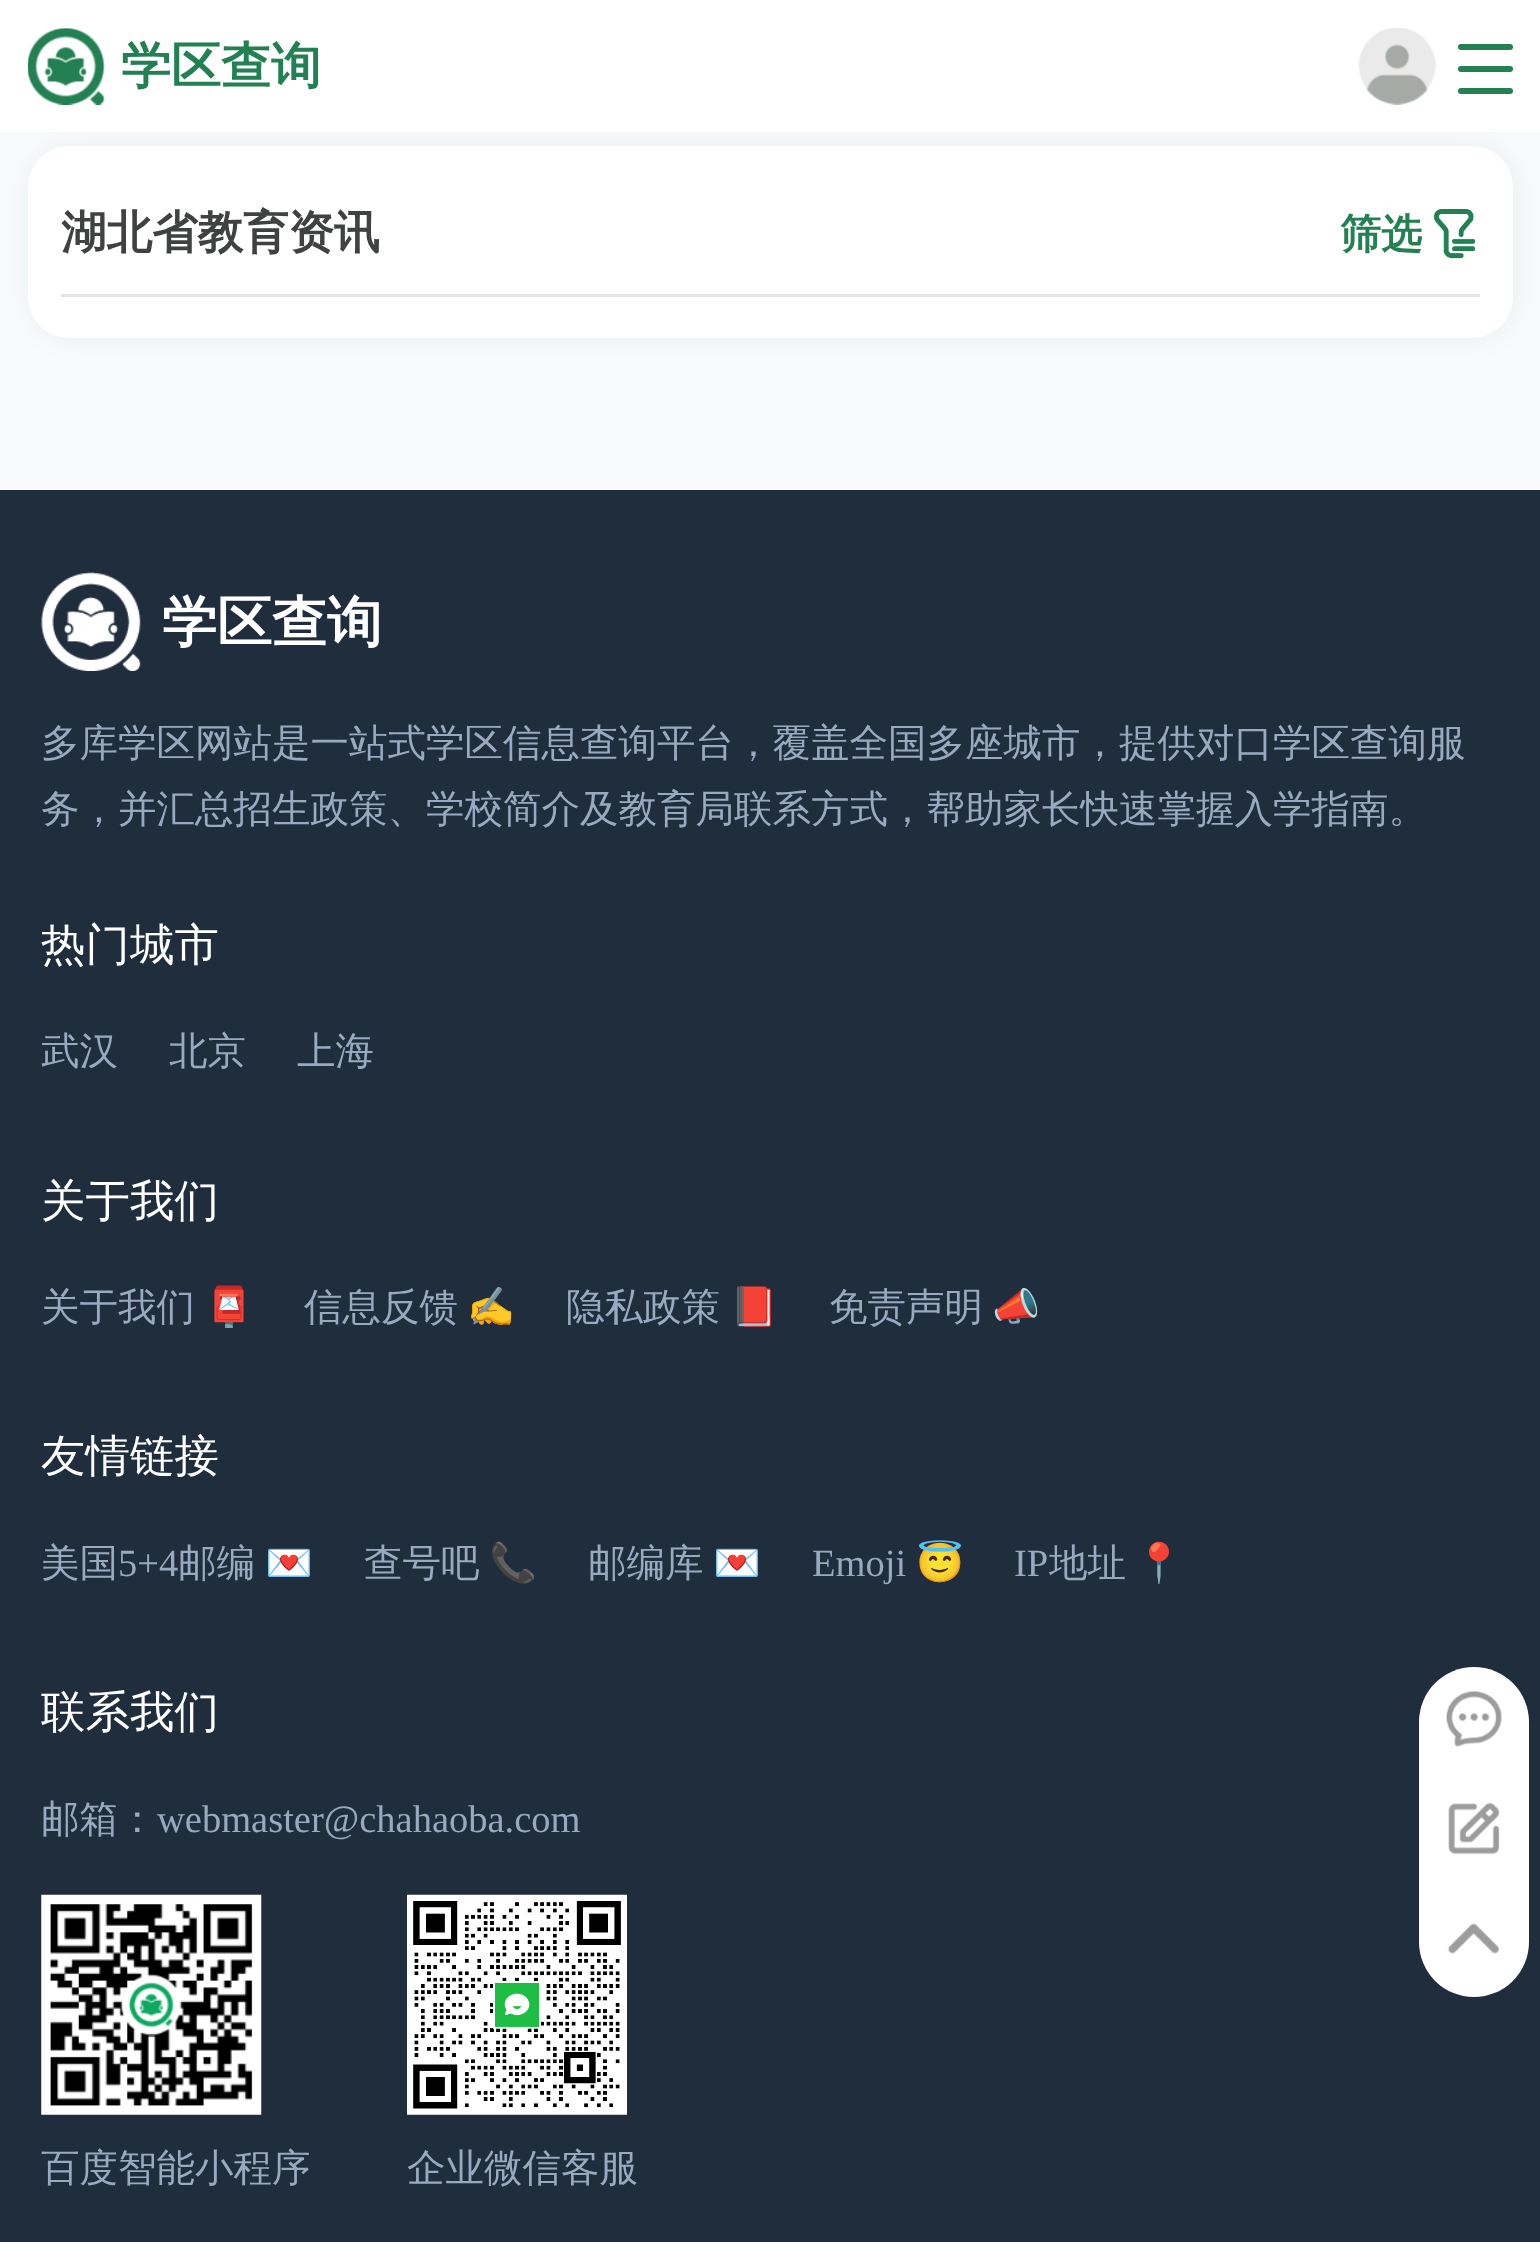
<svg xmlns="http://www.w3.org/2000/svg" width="1540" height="2242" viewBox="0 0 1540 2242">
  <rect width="100%" height="100%" fill="#f8fafb"/>
  <rect x="30" y="146" width="1485" height="192" rx="41" fill="#151e1c0d" filter="blur(14px)"/>
  <path d="M0 0h1540v132H0z" fill="#fff"/>
  <image x="28" y="28" width="77" height="77" href="img/1.png"/>
  <image x="1358" y="28" width="78" height="77" href="img/2.png"/>
  <rect x="1458" y="44" width="55" height="6" rx="3" fill="#228052"/>
  <rect x="1458" y="66" width="55" height="6" rx="3" fill="#228052"/>
  <rect x="1458" y="88" width="55" height="6" rx="3" fill="#228052"/>
  <rect x="28" y="146" width="1485" height="192" rx="41" fill="#fff"/>
  <path d="M61 294h1419v3H61z" fill="#e5e5e5"/>
  <image x="1433" y="209" width="42" height="50" href="img/3.png"/>
  <path d="M0 490h1540v1752H0z" fill="#1f2d3d"/>
  <image x="41" y="572" width="100" height="99" href="img/4.png"/>
  <image x="41" y="1894" width="221" height="221" href="img/5.png"/>
  <image x="407" y="1894" width="220" height="221" href="img/6.png"/>
  <rect x="1419" y="1667" width="110" height="330" rx="55" fill="#fff"/>
  <image x="1446" y="1691" width="56" height="56" href="img/7.png"/>
  <image x="1448" y="1802" width="52" height="53" href="img/8.png"/>
  <image x="1447" y="1923" width="53" height="31" href="img/9.png"/>
  <text x="121" y="83" font-family="WenQuanYi Zen Hei" font-size="50" font-weight="bold" fill="#228052">学区查询</text>
  <text x="61" y="248" font-family="WenQuanYi Zen Hei" font-size="45.5" font-weight="bold" fill="#3f4240">湖北省教育资讯</text>
  <text x="1340" y="248" font-family="WenQuanYi Zen Hei" font-size="41" font-weight="bold" fill="#228052">筛选</text>
  <text x="162" y="641" font-family="WenQuanYi Zen Hei" font-size="55" font-weight="bold" fill="#fff">学区查询</text>
  <g font-family="WenQuanYi Zen Hei" font-size="38.5" font-weight="500" fill="#99a9bf">
    <text x="41" y="756">多库学区网站是一站式学区信息查询平台，覆盖全国多座城市，提供对口学区查询服</text>
    <text x="41" y="822">务，并汇总招生政策、学校简介及教育局联系方式，帮助家长快速掌握入学指南。</text>
  </g>
  <text x="41" y="960" font-family="WenQuanYi Zen Hei" font-size="44.5" font-weight="500" fill="#fff">热门城市</text>
  <g font-family="WenQuanYi Zen Hei" font-size="38.5" font-weight="500" fill="#99a9bf">
    <text x="41" y="1064">武汉</text>
    <text x="169" y="1064">北京</text>
    <text x="297" y="1064">上海</text>
  </g>
  <text x="41" y="1216" font-family="WenQuanYi Zen Hei" font-size="44.5" font-weight="500" fill="#fff">关于我们</text>
  <text x="41" y="1320" font-family="WenQuanYi Zen Hei" font-size="38.5" font-weight="500" fill="#99a9bf">关于我们</text>
  <text x="205" y="1320" font-family="Noto Color Emoji" font-size="38.5" fill="#99a9bf">📮</text>
  <text x="304" y="1320" font-family="WenQuanYi Zen Hei" font-size="38.5" font-weight="500" fill="#99a9bf">信息反馈</text>
  <text x="467" y="1320" font-family="Noto Color Emoji" font-size="38.5" fill="#99a9bf">✍</text>
  <text x="566" y="1320" font-family="WenQuanYi Zen Hei" font-size="38.5" font-weight="500" fill="#99a9bf">隐私政策</text>
  <text x="730" y="1320" font-family="Noto Color Emoji" font-size="38.5" fill="#99a9bf">📕</text>
  <text x="829" y="1320" font-family="WenQuanYi Zen Hei" font-size="38.5" font-weight="500" fill="#99a9bf">免责声明</text>
  <text x="992" y="1320" font-family="Noto Color Emoji" font-size="38.5" fill="#99a9bf">📣</text>
  <text x="41" y="1471" font-family="WenQuanYi Zen Hei" font-size="44.5" font-weight="500" fill="#fff">友情链接</text>
  <text x="41" y="1576" font-family="WenQuanYi Zen Hei" font-size="38.5" font-weight="500" fill="#99a9bf">美国</text>
  <text x="118" y="1576" font-family="Liberation Serif" font-size="38.5" fill="#99a9bf">5+4</text>
  <text x="178" y="1576" font-family="WenQuanYi Zen Hei" font-size="38.5" font-weight="500" fill="#99a9bf">邮编</text>
  <text x="265" y="1576" font-family="Noto Color Emoji" font-size="38.5" fill="#99a9bf">💌</text>
  <text x="364" y="1576" font-family="WenQuanYi Zen Hei" font-size="38.5" font-weight="500" fill="#99a9bf">查号吧</text>
  <text x="489" y="1576" font-family="Noto Color Emoji" font-size="38.5" fill="#99a9bf">📞</text>
  <text x="588" y="1576" font-family="WenQuanYi Zen Hei" font-size="38.5" font-weight="500" fill="#99a9bf">邮编库</text>
  <text x="713" y="1576" font-family="Noto Color Emoji" font-size="38.5" fill="#99a9bf">💌</text>
  <text x="812" y="1576" font-family="Liberation Serif" font-size="38.5" fill="#99a9bf">Emoji</text>
  <text x="916" y="1576" font-family="Noto Color Emoji" font-size="38.5" fill="#99a9bf">😇</text>
  <text x="1014" y="1576" font-family="Liberation Serif" font-size="38.5" fill="#99a9bf">IP</text>
  <text x="1049" y="1576" font-family="WenQuanYi Zen Hei" font-size="38.5" font-weight="500" fill="#99a9bf">地址</text>
  <text x="1135" y="1576" font-family="Noto Color Emoji" font-size="38.5" fill="#99a9bf">📍</text>
  <text x="41" y="1727" font-family="WenQuanYi Zen Hei" font-size="44.5" font-weight="500" fill="#fff">联系我们</text>
  <text x="41" y="1832" font-family="WenQuanYi Zen Hei" font-size="38.5" font-weight="500" fill="#99a9bf">邮箱：</text>
  <text x="157" y="1832" font-family="Liberation Serif" font-size="38.5" fill="#99a9bf">webmaster@chahaoba.com</text>
  <g font-family="WenQuanYi Zen Hei" font-size="38.5" font-weight="500" fill="#99a9bf">
    <text x="41" y="2181">百度智能小程序</text>
    <text x="407" y="2181">企业微信客服</text>
  </g>
</svg>
